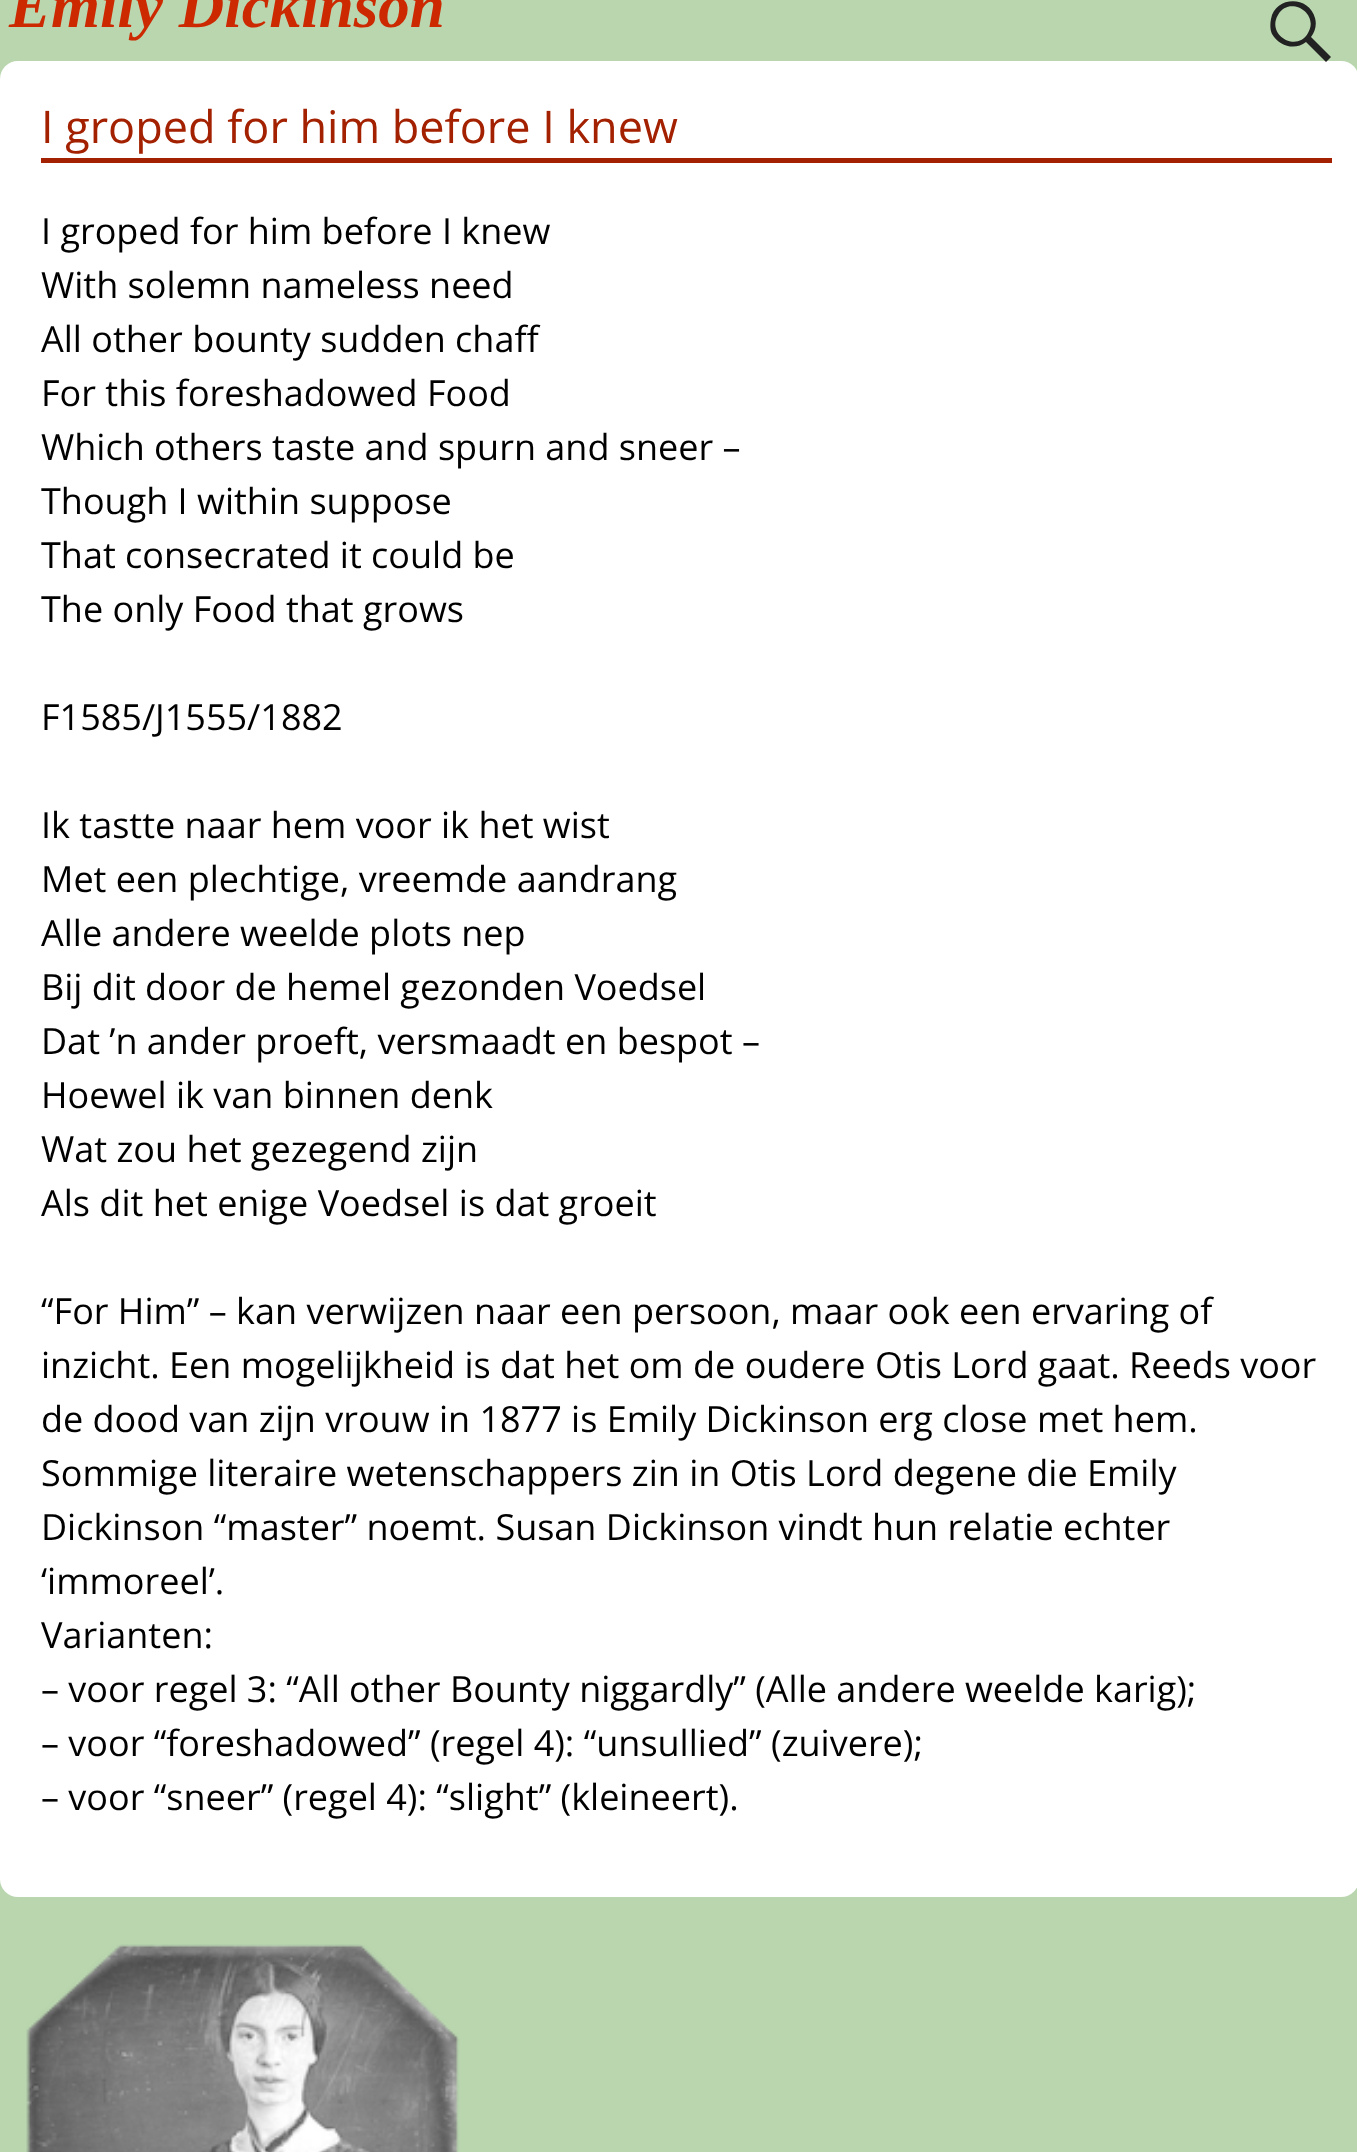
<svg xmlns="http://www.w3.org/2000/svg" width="1357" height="2152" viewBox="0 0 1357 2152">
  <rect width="100%" height="100%" fill="#b9d6af"/>
  <rect y="61" width="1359" height="1836" rx="18" fill="#fff"/>
  <path d="M1331 57L1326 62L1306 42C1295 51 1279 46 1272 34C1270 30 1270 24 1271 19C1275-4 1309-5 1315 18C1317 25 1315 32 1311 37ZM1278 15C1266 35 1297 53 1308 33C1320 13 1289-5 1278 15Z" fill="#222"/>
  <path d="M41 158h1291v5H41z" fill="#a32100"/>
  <image x="26" y="1944" width="434" height="208" href="img/1.png"/>
  <text x="9" y="27" font-family="Liberation Serif" font-size="63" font-weight="bold" font-style="italic" fill="#cc2900">Emily Dickinson</text>
  <text x="41" y="143" font-family="Open Sans" font-size="45" fill="#a32100">I groped for him before I knew</text>
  <g font-family="Open Sans" font-size="36" fill="#000">
    <text x="41" y="244">I groped for him before I knew</text>
    <text x="41" y="298">With solemn nameless need</text>
    <text x="41" y="352">All other bounty sudden chaff</text>
    <text x="41" y="406">For this foreshadowed Food</text>
    <text x="41" y="460">Which others taste and spurn and sneer –</text>
    <text x="41" y="514">Though I within suppose</text>
    <text x="41" y="568">That consecrated it could be</text>
    <text x="41" y="622">The only Food that grows</text>
    <text x="41" y="730">F1585/J1555/1882</text>
    <text x="41" y="838">Ik tastte naar hem voor ik het wist</text>
    <text x="41" y="892">Met een plechtige, vreemde aandrang</text>
    <text x="41" y="946">Alle andere weelde plots nep</text>
    <text x="41" y="1000">Bij dit door de hemel gezonden Voedsel</text>
    <text x="41" y="1054">Dat ’n ander proeft, versmaadt en bespot –</text>
    <text x="41" y="1108">Hoewel ik van binnen denk</text>
    <text x="41" y="1162">Wat zou het gezegend zijn</text>
    <text x="41" y="1216">Als dit het enige Voedsel is dat groeit</text>
    <text x="41" y="1324">“For Him” – kan verwijzen naar een persoon, maar ook een ervaring of</text>
    <text x="41" y="1378">inzicht. Een mogelijkheid is dat het om de oudere Otis Lord gaat. Reeds voor</text>
    <text x="41" y="1432">de dood van zijn vrouw in 1877 is Emily Dickinson erg close met hem.</text>
    <text x="41" y="1486">Sommige literaire wetenschappers zin in Otis Lord degene die Emily</text>
    <text x="41" y="1540">Dickinson “master” noemt. Susan Dickinson vindt hun relatie echter</text>
    <text x="41" y="1594">‘immoreel’.</text>
    <text x="41" y="1648">Varianten:</text>
    <text x="41" y="1702">– voor regel 3: “All other Bounty niggardly” (Alle andere weelde karig);</text>
    <text x="41" y="1756">– voor “foreshadowed” (regel 4): “unsullied” (zuivere);</text>
    <text x="41" y="1810">– voor “sneer” (regel 4): “slight” (kleineert).</text>
  </g>
</svg>
